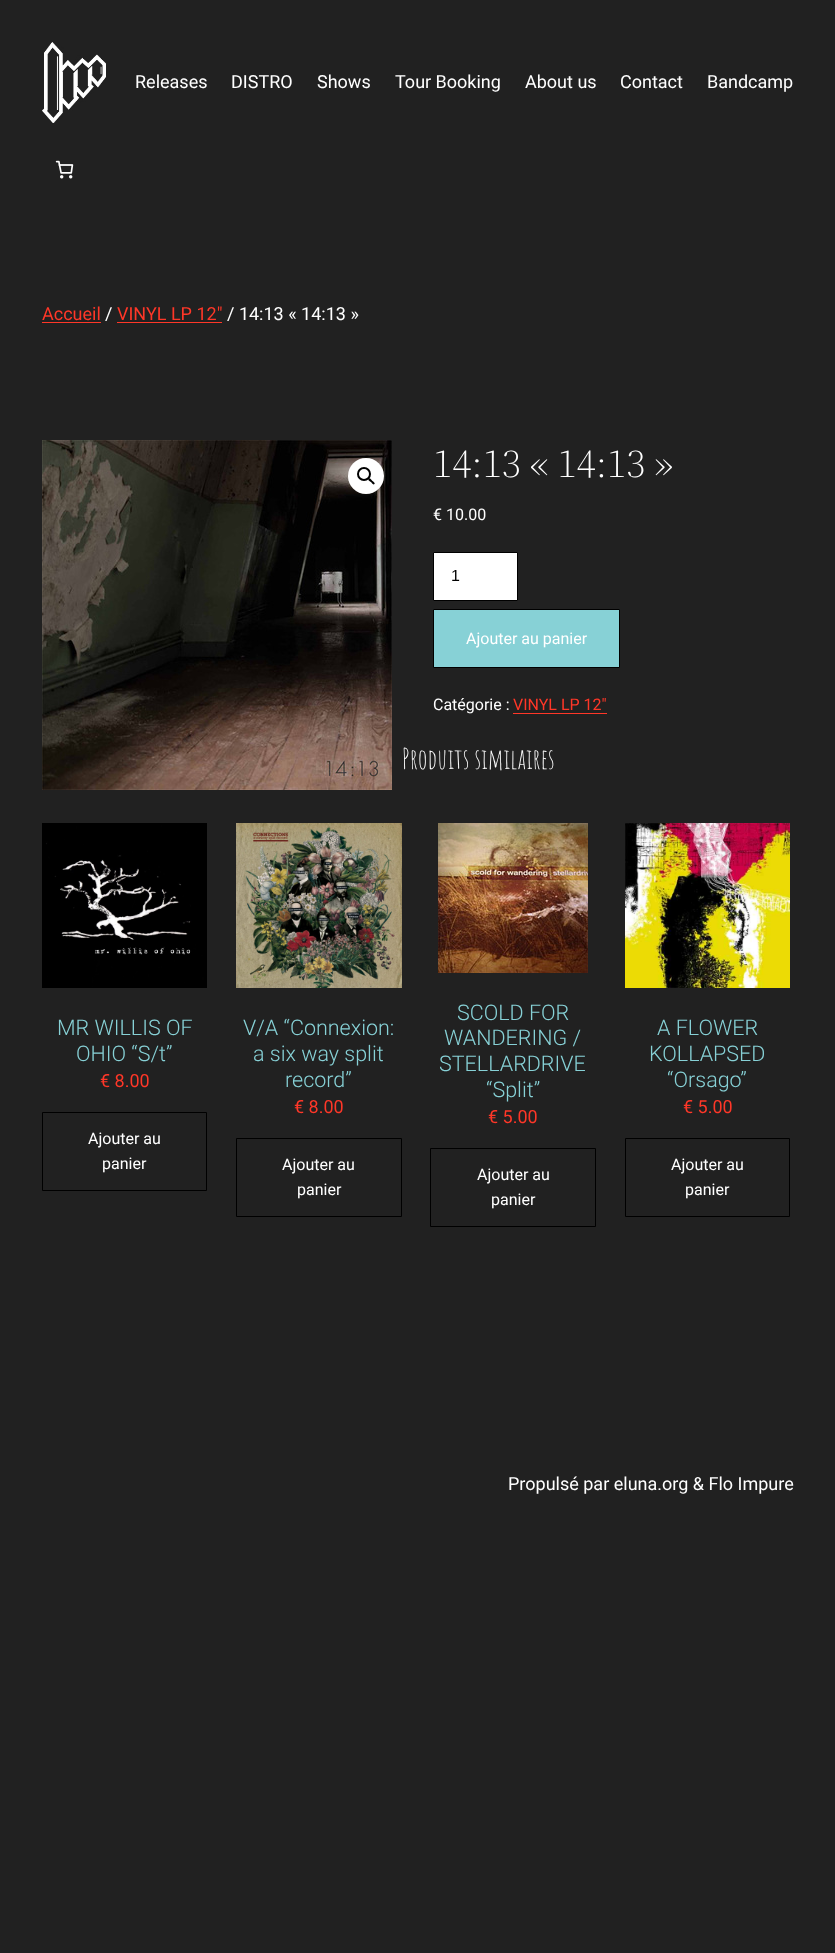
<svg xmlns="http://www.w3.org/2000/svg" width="835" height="1953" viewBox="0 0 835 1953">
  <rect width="100%" height="100%" fill="#212121"/>
  <image x="42" y="42" width="64" height="81" href="img/1.png"/>
  <image x="55" y="160" width="19" height="19" href="img/2.png"/>
  <path d="M42 322h59v1H42z" fill="#ff3728"/>
  <path d="M117 322h105v1H117z" fill="#ff3728"/>
  <image x="42" y="440" width="350" height="350" href="img/3.png"/>
  <circle cx="366" cy="476" r="18" fill="#fff"/>
  <circle cx="364" cy="474" r="6" fill="none" stroke="#000" stroke-width="2"/>
  <path d="M368.5 478.5C370 477.5 371.5 480 372 480.5C373 481.5 375.5 483 374.5 484C373 485.5 371.5 482.5 371 482C370 481.5 367.5 480 368.5 478.5Z" fill="#000"/>
  <path d="M433.5 552.5h84v48H433.5z" fill="#fff" stroke="#000"/>
  <path d="M433.5 609.5h186v58H433.5z" fill="#87d1d6" stroke="#000"/>
  <path d="M513 713h94v1H513z" fill="#ff3728"/>
  <image x="42" y="823" width="165" height="165" href="img/4.png"/>
  <path d="M42.5 1112.5h164v78H42.5z" fill="none" stroke="#000"/>
  <image x="236" y="823" width="166" height="165" href="img/5.png"/>
  <path d="M236.5 1138.5h165v78H236.5z" fill="none" stroke="#000"/>
  <image x="438" y="823" width="150" height="150" href="img/6.png"/>
  <path d="M430.5 1148.5h165v78H430.5z" fill="none" stroke="#000"/>
  <image x="625" y="823" width="165" height="165" href="img/7.png"/>
  <path d="M625.5 1138.5h164v78H625.5z" fill="none" stroke="#000"/>
  <g font-family="Roboto" font-size="18" fill="#fff">
    <text x="135" y="88">Releases</text>
    <text x="231" y="88">DISTRO</text>
    <text x="317" y="88">Shows</text>
    <text x="395" y="88">Tour Booking</text>
    <text x="525" y="88">About us</text>
    <text x="620" y="88">Contact</text>
    <text x="707" y="88">Bandcamp</text>
  </g>
  <text x="42" y="320" font-family="Roboto" font-size="18" fill="#ff3728">Accueil</text>
  <text x="105" y="320" font-family="Roboto" font-size="18" fill="#fff">/</text>
  <text x="117" y="320" font-family="Roboto" font-size="18" fill="#ff3728">VINYL LP 12"</text>
  <text x="227" y="320" font-family="Roboto" font-size="18" fill="#fff">/ 14:13 « 14:13 »</text>
  <text x="433" y="477" font-family="'Source Serif 4'" font-size="40" font-weight="300" fill="#fff">14:13 « 14:13 »</text>
  <text x="433" y="520" font-family="Roboto" font-size="16" fill="#fff">€ 10.00</text>
  <text x="451" y="581" font-family="Liberation Sans" font-size="16" fill="#000">1</text>
  <g font-family="Roboto" font-size="16" fill="#fff">
    <text x="466" y="644">Ajouter au panier</text>
    <text x="433" y="710">Catégorie :</text>
  </g>
  <text x="513" y="710" font-family="Roboto" font-size="16" fill="#ff3728">VINYL LP 12″</text>
  <text x="402" y="769" font-family="Amatic SC" font-size="28" fill="#fff">Produits similaires</text>
  <g font-family="Roboto" font-size="21.5" font-weight="300" fill="#87d1d6">
    <text x="57" y="1035">MR WILLIS OF</text>
    <text x="76" y="1061">OHIO “S/t”</text>
  </g>
  <text x="100" y="1087" font-family="Roboto" font-size="18" fill="#ff3728">€ 8.00</text>
  <g font-family="Roboto" font-size="16" fill="#fff">
    <text x="88" y="1144">Ajouter au</text>
    <text x="102" y="1169">panier</text>
  </g>
  <g font-family="Roboto" font-size="21.5" font-weight="300" fill="#87d1d6">
    <text x="243" y="1035">V/A “Connexion:</text>
    <text x="253" y="1061">a six way split</text>
    <text x="285" y="1087">record”</text>
  </g>
  <text x="294" y="1113" font-family="Roboto" font-size="18" fill="#ff3728">€ 8.00</text>
  <g font-family="Roboto" font-size="16" fill="#fff">
    <text x="282" y="1170">Ajouter au</text>
    <text x="297" y="1195">panier</text>
  </g>
  <g font-family="Roboto" font-size="21.5" font-weight="300" fill="#87d1d6">
    <text x="457" y="1020">SCOLD FOR</text>
    <text x="444" y="1045">WANDERING /</text>
    <text x="439" y="1071">STELLARDRIVE</text>
    <text x="486" y="1097">“Split”</text>
  </g>
  <text x="488" y="1123" font-family="Roboto" font-size="18" fill="#ff3728">€ 5.00</text>
  <g font-family="Roboto" font-size="16" fill="#fff">
    <text x="477" y="1180">Ajouter au</text>
    <text x="491" y="1205">panier</text>
  </g>
  <g font-family="Roboto" font-size="21.5" font-weight="300" fill="#87d1d6">
    <text x="657" y="1035">A FLOWER</text>
    <text x="649" y="1061">KOLLAPSED</text>
    <text x="667" y="1087">“Orsago”</text>
  </g>
  <text x="683" y="1113" font-family="Roboto" font-size="18" fill="#ff3728">€ 5.00</text>
  <g font-family="Roboto" font-size="16" fill="#fff">
    <text x="671" y="1170">Ajouter au</text>
    <text x="685" y="1195">panier</text>
  </g>
  <text x="508" y="1490" font-family="Roboto" font-size="18" fill="#fff">Propulsé par eluna.org &amp; Flo Impure</text>
</svg>
